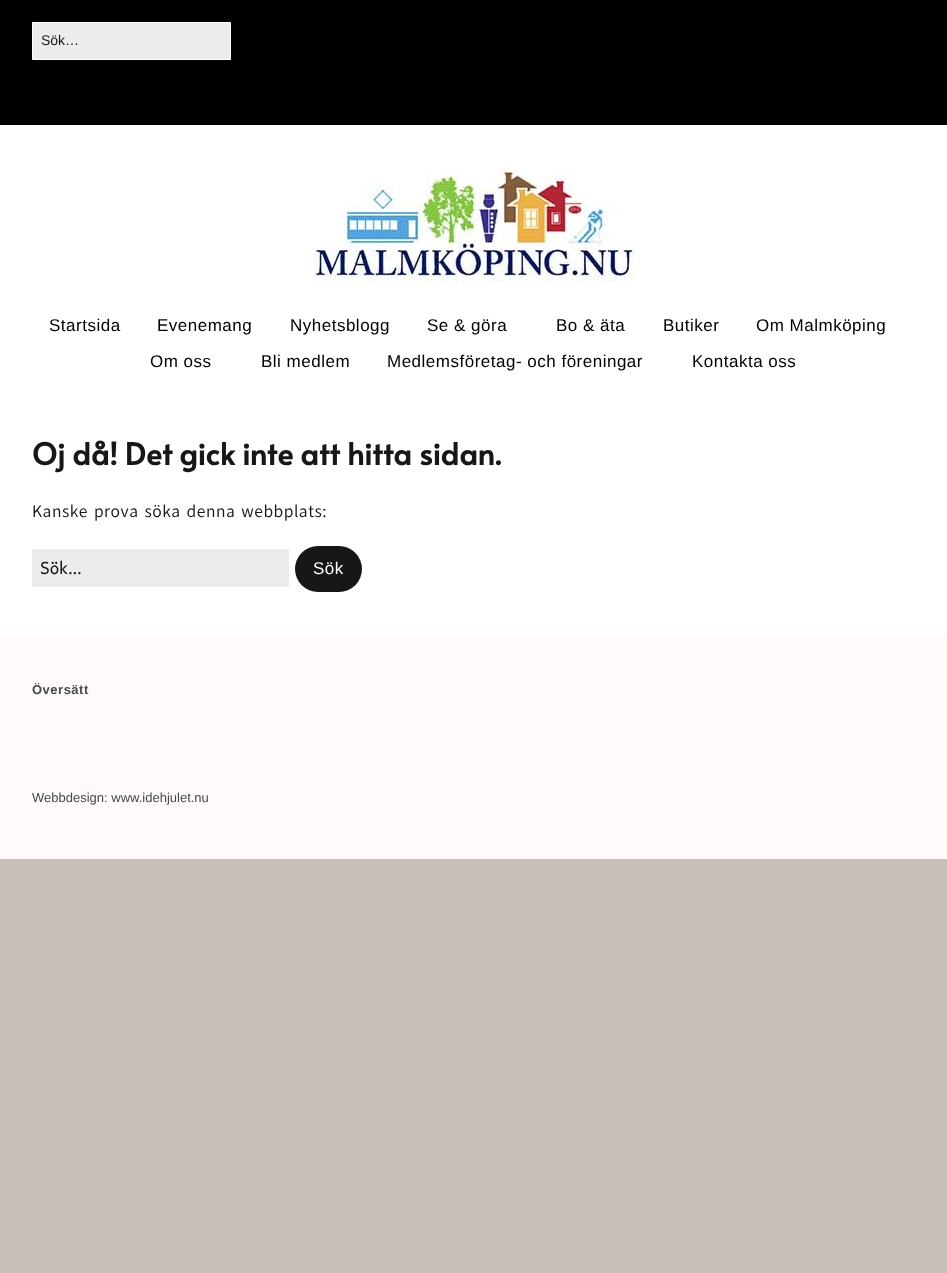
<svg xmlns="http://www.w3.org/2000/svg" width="947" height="1273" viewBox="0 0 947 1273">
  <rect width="100%" height="100%" fill="#c9c0b9"/>
  <path d="M0 0h947v125H0z" fill="#000"/>
  <path d="M0 125h947v511H0z" fill="#fff"/>
  <path d="M32.5 22.5h198v37H32.5z" fill="#eaecee" stroke="#fff"/>
  <image x="314" y="170" width="320" height="112" href="img/1.png"/>
  <path d="M32 549h257v38H32z" fill="#eaecee"/>
  <rect x="295" y="546" width="67" height="46" rx="23" fill="#171717"/>
  <path d="M0 636h947v223H0z" fill="#fff9f9"/>
  <text x="41" y="45" font-family="Liberation Sans" font-size="14" fill="#171717">Sök…</text>
  <g font-family="Liberation Sans" font-size="17" letter-spacing="0.5" fill="#000">
    <text x="49" y="331">Startsida</text>
    <text x="157" y="331">Evenemang</text>
    <text x="290" y="331">Nyhetsblogg</text>
    <text x="427" y="331">Se &amp; göra</text>
    <text x="556" y="331">Bo &amp; äta</text>
    <text x="663" y="331">Butiker</text>
    <text x="756" y="331">Om Malmköping</text>
    <text x="150" y="367">Om oss</text>
    <text x="261" y="367">Bli medlem</text>
    <text x="387" y="367">Medlemsföretag- och föreningar</text>
    <text x="692" y="367">Kontakta oss</text>
  </g>
  <text x="32" y="465" word-spacing="-1" font-family="Alata" font-size="30" font-weight="bold" letter-spacing="0.4" fill="#171717">Oj då! Det gick inte att hitta sidan.</text>
  <text x="32" y="517" font-family="Akatab" font-size="17" letter-spacing="0.5" fill="#171717">Kanske prova söka denna webbplats:</text>
  <text x="40" y="574" font-family="Andika" font-size="17" fill="#171717">Sök…</text>
  <text x="313" y="574" font-family="Liberation Sans" font-size="17" letter-spacing="0.5" fill="#fff">Sök</text>
  <text x="32" y="694" font-family="Liberation Sans" font-size="13" font-weight="bold" letter-spacing="0.5" fill="#464849">Översätt</text>
  <text x="32" y="802" font-family="Liberation Sans" font-size="13" fill="#464849">Webbdesign: www.idehjulet.nu</text>
</svg>
